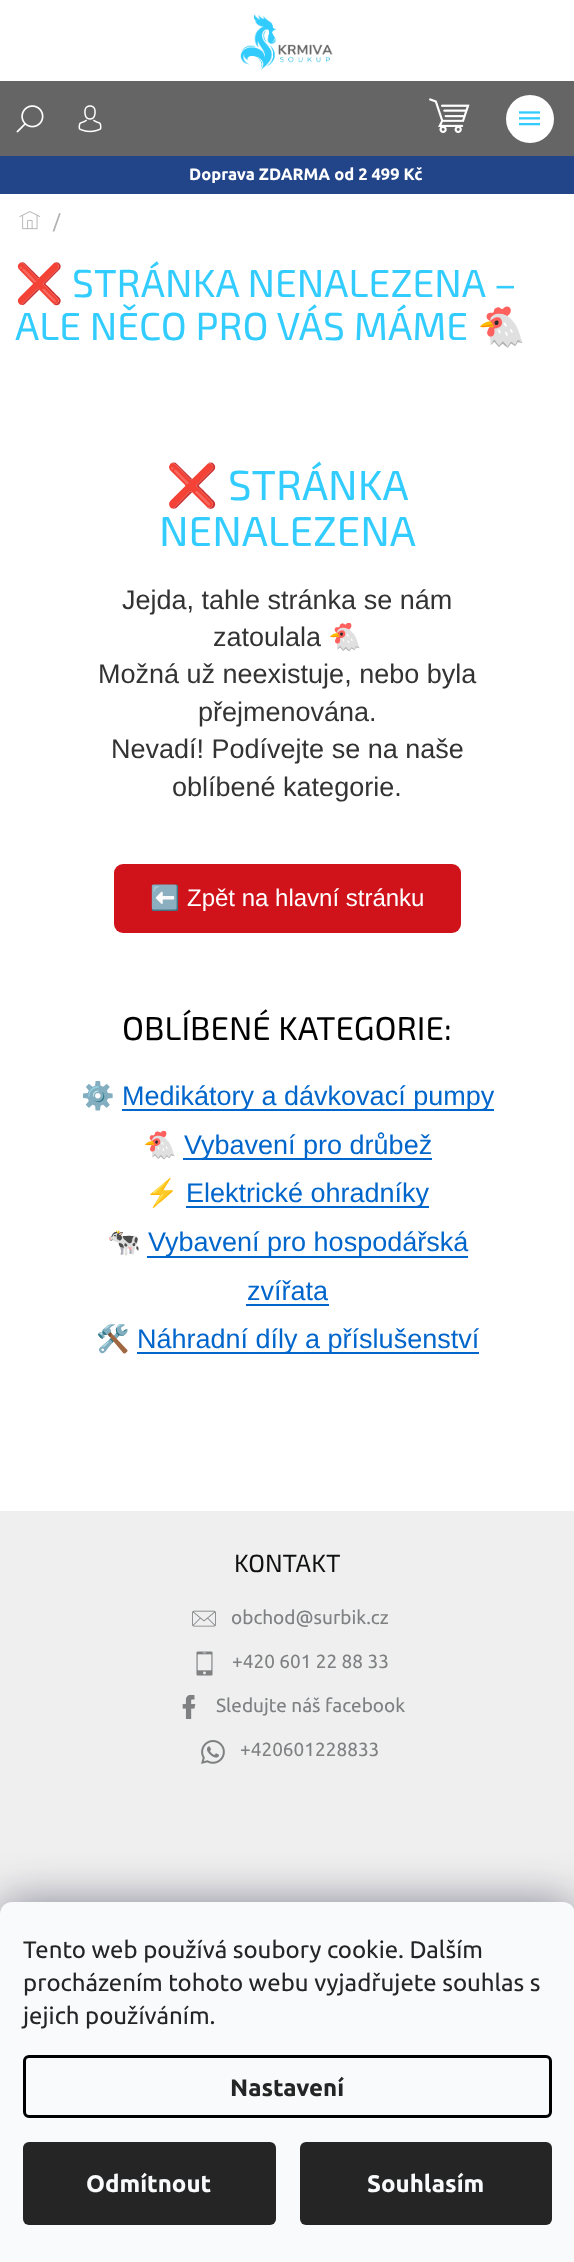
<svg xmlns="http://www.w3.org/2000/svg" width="574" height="2262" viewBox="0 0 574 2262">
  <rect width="100%" height="100%" fill="#fff"/>
  <image x="240" y="14" width="93" height="56" href="img/1.png"/>
  <path d="M0 81h574v75H0z" fill="#656565"/>
  <image x="429" y="98" width="41" height="35" href="img/2.png"/>
  <image x="16" y="105" width="28" height="28" href="img/3.png"/>
  <image x="78" y="105" width="24" height="28" href="img/4.png"/>
  <circle cx="530" cy="119" r="24" fill="#fff"/>
  <image x="519" y="111" width="21" height="15" href="img/5.png"/>
  <path d="M0 156h574v38H0z" fill="#248"/>
  <image x="19" y="211" width="22" height="19" href="img/6.png"/>
  <rect x="114" y="864" width="347" height="69" rx="9" fill="#d0121a"/>
  <path d="M122 1109h372v2H122z" fill="#06c"/>
  <path d="M183 1158h249v2H183z" fill="#06c"/>
  <path d="M186 1206h243v2H186z" fill="#06c"/>
  <path d="M147 1256h321v2H147z" fill="#06c"/>
  <path d="M246 1304h83v2H246z" fill="#06c"/>
  <path d="M137 1352h342v2H137z" fill="#06c"/>
  <path d="M0 1511h574v403H0z" fill="#efefef"/>
  <image x="192" y="1610" width="24" height="17" href="img/7.png"/>
  <image x="196" y="1651" width="17" height="25" href="img/8.png"/>
  <image x="182" y="1695" width="14" height="25" href="img/9.png"/>
  <image x="201" y="1740" width="24" height="24" href="img/10.png"/>
  <rect y="1902" width="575" height="360" rx="12" fill="#1b193980" filter="blur(22.5px)"/>
  <path d="M12 1902H563C569.5 1902 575 1907.5 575 1914V2262H0V1914C0 1907.5 5.5 1902 12 1902Z" fill="#f8fafb"/>
  <rect x="24.5" y="2056.5" width="526" height="60" rx="4.5" fill="none" stroke="#000" stroke-width="3"/>
  <rect x="23" y="2142" width="253" height="83" rx="6" fill="#252525"/>
  <rect x="300" y="2142" width="252" height="83" rx="6" fill="#252525"/>
  <text x="189" y="180" font-family="Ubuntu" font-size="16.5" font-weight="bold" fill="#fff">Doprava ZDARMA od 2 499 Kč</text>
  <text x="53" y="228" font-family="Ubuntu" font-size="19" fill="#b2b2b2">/</text>
  <text x="15" y="297" font-family="Noto Color Emoji" font-size="39" fill="#3cf">❌</text>
  <g font-family="'Exo 2'" font-size="39" fill="#3cf">
    <text x="72" y="297">STRÁNKA NENALEZENA –</text>
    <text x="15" y="340">ALE NĚCO PRO VÁS MÁME</text>
  </g>
  <text x="477" y="340" font-family="Noto Color Emoji" font-size="39" fill="#3cf">🐔</text>
  <text x="166" y="500" font-family="Noto Color Emoji" font-size="42" fill="#3cf">❌</text>
  <g font-family="'Exo 2'" font-size="42" fill="#3cf">
    <text x="228" y="500">STRÁNKA</text>
    <text x="159" y="546">NENALEZENA</text>
  </g>
  <g font-family="Liberation Sans" font-size="27" fill="#333">
    <text x="122" y="609">Jejda, tahle stránka se nám</text>
    <text x="213" y="646">zatoulala</text>
  </g>
  <text x="328" y="646" font-family="Noto Color Emoji" font-size="27" fill="#333">🐔</text>
  <g font-family="Liberation Sans" font-size="27" fill="#333">
    <text x="98" y="683">Možná už neexistuje, nebo byla</text>
    <text x="198" y="721">přejmenována.</text>
    <text x="111" y="758">Nevadí! Podívejte se na naše</text>
    <text x="172" y="796">oblíbené kategorie.</text>
  </g>
  <text x="150" y="906" font-family="Noto Color Emoji" font-size="24" fill="#fff">⬅️</text>
  <text x="187" y="906" font-family="Liberation Sans" font-size="24" fill="#fff">Zpět na hlavní stránku</text>
  <text x="122" y="1040" font-family="'Exo 2'" font-size="33" fill="#000">OBLÍBENÉ KATEGORIE:</text>
  <text x="81" y="1105" font-family="Noto Color Emoji" font-size="27" fill="#666">⚙️</text>
  <text x="122" y="1105" font-family="Liberation Sans" font-size="27" fill="#06c">Medikátory a dávkovací pumpy</text>
  <text x="143" y="1154" font-family="Noto Color Emoji" font-size="27" fill="#666">🐔</text>
  <text x="184" y="1154" font-family="Liberation Sans" font-size="27" fill="#06c">Vybavení pro drůbež</text>
  <text x="145" y="1202" font-family="Noto Color Emoji" font-size="27" fill="#666">⚡</text>
  <text x="186" y="1202" font-family="Liberation Sans" font-size="27" fill="#06c">Elektrické ohradníky</text>
  <text x="107" y="1251" font-family="Noto Color Emoji" font-size="27" fill="#666">🐄</text>
  <g font-family="Liberation Sans" font-size="27" fill="#06c">
    <text x="148" y="1251">Vybavení pro hospodářská</text>
    <text x="247" y="1300">zvířata</text>
  </g>
  <text x="96" y="1348" font-family="Noto Color Emoji" font-size="27" fill="#666">🛠️</text>
  <text x="137" y="1348" font-family="Liberation Sans" font-size="27" fill="#06c">Náhradní díly a příslušenství</text>
  <text x="234" y="1572" font-family="'Exo 2'" font-size="25" fill="#0f1010">KONTAKT</text>
  <g font-family="Ubuntu" font-size="19" fill="#7e8082">
    <text x="231" y="1624">obchod@surbik.cz</text>
    <text x="232" y="1668">+420 601 22 88 33</text>
    <text x="216" y="1712">Sledujte náš facebook</text>
    <text x="240" y="1756">+420601228833</text>
  </g>
  <g font-family="Ubuntu" font-size="24" fill="#252525">
    <text x="23" y="1958">Tento web používá soubory cookie. Dalším</text>
    <text x="23" y="1991">procházením tohoto webu vyjadřujete souhlas s</text>
    <text x="23" y="2024">jejich používáním.</text>
  </g>
  <text x="230" y="2096" font-family="Ubuntu" font-size="24" font-weight="bold" fill="#252525">Nastavení</text>
  <g font-family="Ubuntu" font-size="24" font-weight="bold" fill="#f8fafb">
    <text x="86" y="2192">Odmítnout</text>
    <text x="367" y="2192">Souhlasím</text>
  </g>
</svg>
